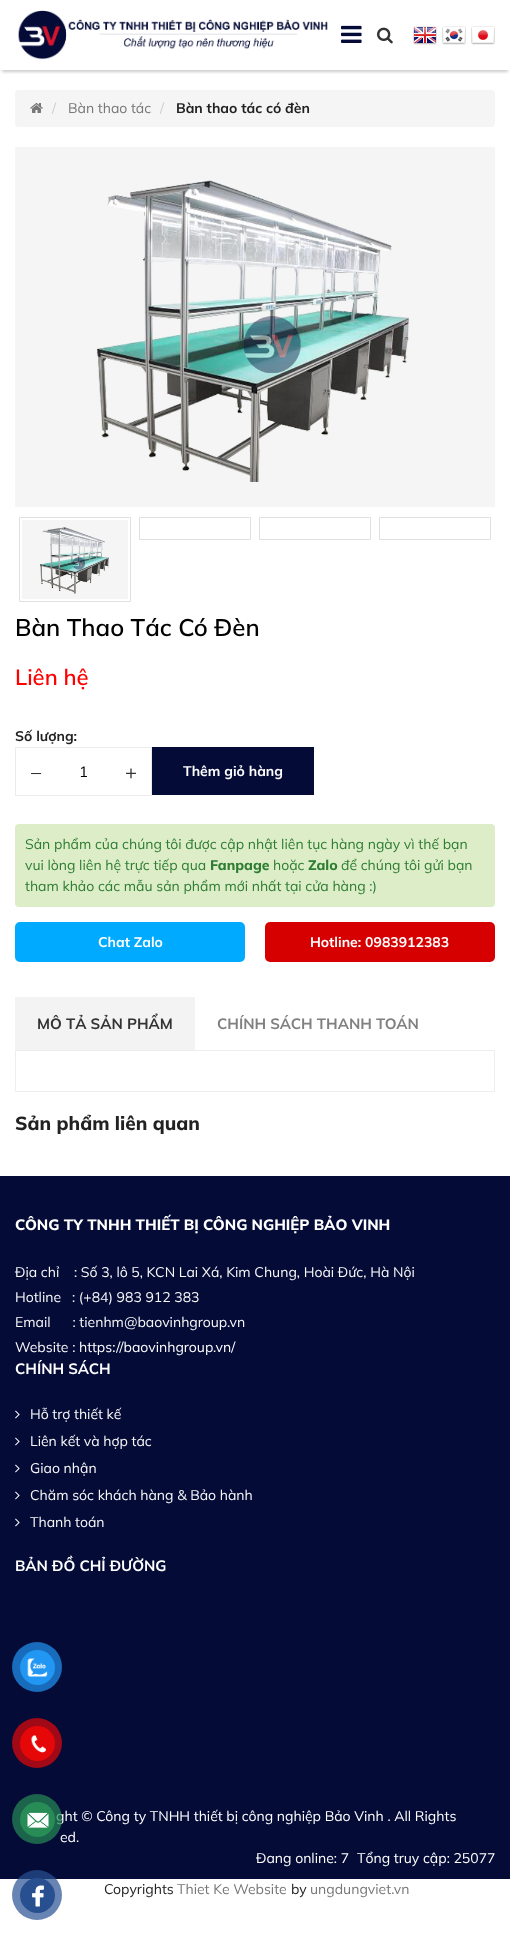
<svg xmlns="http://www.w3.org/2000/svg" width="510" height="1934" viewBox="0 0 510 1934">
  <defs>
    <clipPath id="clip1"><path d="M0 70h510v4H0z"/></clipPath>
  </defs>
  <rect width="100%" height="100%" fill="#fff"/>
  <g clip-path="url(#clip1)">
    <path d="M2 6h506v66H2z" fill="#00000033" filter="blur(1.5px)"/>
  </g>
  <image x="18" y="10" width="310" height="50" href="img/1.png"/>
  <image x="341" y="25" width="21" height="18" href="img/2.png"/>
  <image x="377" y="27" width="16" height="17" href="img/3.png"/>
  <image x="413" y="26" width="24" height="19" href="img/4.png"/>
  <image x="442" y="26" width="24" height="19" href="img/5.png"/>
  <image x="471" y="26" width="24" height="19" href="img/6.png"/>
  <rect x="15" y="90" width="480" height="37" rx="4" fill="#f5f5f5"/>
  <image x="30" y="103" width="13" height="10" href="img/7.png"/>
  <image x="15" y="147" width="480" height="360" href="img/8.png"/>
  <path d="M19.5 517.5h111v84H19.5z" fill="none" stroke="#e0e0e0"/>
  <image x="22" y="520" width="106" height="79" href="img/9.png"/>
  <path d="M139.5 517.5h111v22H139.5z" fill="none" stroke="#e0e0e0"/>
  <path d="M259.5 517.5h111v22H259.5z" fill="none" stroke="#e0e0e0"/>
  <path d="M379.5 517.5h111v22H379.5z" fill="none" stroke="#e0e0e0"/>
  <path d="M15.5 747.5h136v48H15.5z" fill="none" stroke="#ebebeb"/>
  <path d="M152 747h162v48H152z" fill="#040b37"/>
  <rect x="15" y="824" width="480" height="83" rx="4" fill="#dcedc8"/>
  <rect x="15" y="922" width="230" height="40" rx="5" fill="#00abff"/>
  <rect x="265" y="922" width="230" height="40" rx="5" fill="#d70000"/>
  <path d="M15 997h180v53H15z" fill="#f3f3f3"/>
  <path d="M15.5 1050.5h479v41H15.5z" fill="none" stroke="#eee"/>
  <path d="M0 1176h510v703H0z" fill="#040b37"/>
  <image x="15" y="1410" width="5" height="9" href="img/10.png"/>
  <image x="15" y="1437" width="5" height="9" href="img/10.png"/>
  <image x="15" y="1464" width="5" height="9" href="img/10.png"/>
  <image x="15" y="1491" width="5" height="9" href="img/10.png"/>
  <image x="15" y="1518" width="5" height="9" href="img/10.png"/>
  <circle cx="37" cy="1667" r="25" fill="#186cbb"/>
  <circle cx="37.5" cy="1667.5" r="17.5" fill="#2196f3"/>
  <image x="27" y="1658" width="21" height="19" href="img/11.png"/>
  <circle cx="37" cy="1743" r="25" fill="#a20916"/>
  <circle cx="37.5" cy="1743.5" r="17.5" fill="#e60808"/>
  <image x="31" y="1735" width="15" height="18" href="img/12.png"/>
  <circle cx="37" cy="1895" r="25" fill="#285091b3"/>
  <circle cx="37.5" cy="1895.5" r="17.5" fill="#285091"/>
  <image x="32" y="1885" width="12" height="22" href="img/14.png"/>
  <text x="52" y="113" font-family="Mulish" font-size="14" fill="#ccc">/</text>
  <text x="68" y="113" font-family="Mulish" font-size="14" fill="#777">Bàn thao tác</text>
  <text x="160" y="113" font-family="Mulish" font-size="14" fill="#ccc">/</text>
  <text x="176" y="113" font-family="Mulish" font-size="14" font-weight="bold" fill="#222">Bàn thao tác có đèn</text>
  <text x="15" y="636" font-family="Mulish" font-size="24" font-weight="600" fill="#000">Bàn Thao Tác Có Đèn</text>
  <text x="15" y="685" font-family="Mulish" font-size="22" font-weight="600" fill="#f00">Liên hệ</text>
  <text x="15" y="741" font-family="Mulish" font-size="14" font-weight="bold" fill="#222">Số lượng:</text>
  <text x="31" y="779" font-family="Mulish" font-size="20" fill="#333">–</text>
  <text x="79" y="777" font-family="Mulish" font-size="15" fill="#000">1</text>
  <text x="125" y="779" font-family="Mulish" font-size="20" fill="#333">+</text>
  <text x="183" y="776" font-family="Mulish" font-size="14" font-weight="bold" fill="#fff">Thêm giỏ hàng</text>
  <g font-family="Mulish" font-size="14" fill="#2e7d32">
    <text x="25" y="849">Sản phẩm của chúng tôi được cập nhật liên tục hàng ngày vì thế bạn</text>
    <text x="25" y="870">vui lòng liên hệ trực tiếp qua</text>
  </g>
  <text x="210" y="870" font-family="Mulish" font-size="14" font-weight="800" fill="#2e7d32">Fanpage</text>
  <text x="273" y="870" font-family="Mulish" font-size="14" fill="#2e7d32">hoặc</text>
  <text x="308" y="870" font-family="Mulish" font-size="14" font-weight="800" fill="#2e7d32">Zalo</text>
  <g font-family="Mulish" font-size="14" fill="#2e7d32">
    <text x="341" y="870">để chúng tôi gửi bạn</text>
    <text x="25" y="891">tham khảo các mẫu sản phẩm mới nhất tại cửa hàng :)</text>
  </g>
  <g font-family="Mulish" font-size="14" font-weight="bold" fill="#fff">
    <text x="98" y="947">Chat Zalo</text>
    <text x="310" y="947">Hotline: 0983912383</text>
  </g>
  <text x="37" y="1029" font-family="Mulish" font-size="15" font-weight="bold" fill="#333">MÔ TẢ SẢN PHẨM</text>
  <text x="217" y="1029" font-family="Mulish" font-size="15" font-weight="bold" fill="#808080">CHÍNH SÁCH THANH TOÁN</text>
  <text x="15" y="1130" font-family="Mulish" font-size="19" font-weight="800" fill="#222">Sản phẩm liên quan</text>
  <text x="15" y="1230" font-family="Mulish" font-size="15" font-weight="800" fill="#fff">CÔNG TY TNHH THIẾT BỊ CÔNG NGHIỆP BẢO VINH</text>
  <g font-family="Mulish" font-size="14" fill="#f8f8f8">
    <text x="15" y="1277" xml:space="preserve">Địa chỉ    : Số 3, lô 5, KCN Lai Xá, Kim Chung, Hoài Đức, Hà Nội</text>
    <text x="15" y="1302" xml:space="preserve">Hotline   : (+84) 983 912 383</text>
    <text x="15" y="1327" xml:space="preserve">Email      : tienhm@baovinhgroup.vn</text>
    <text x="15" y="1352">Website :</text>
  </g>
  <text x="79" y="1352" font-family="Mulish" font-size="14" fill="#fff">https://baovinhgroup.vn/</text>
  <text x="15" y="1374" font-family="Mulish" font-size="15" font-weight="bold" fill="#fff">CHÍNH SÁCH</text>
  <g font-family="Mulish" font-size="14" fill="#f8f8f8">
    <text x="30" y="1419">Hỗ trợ thiết kế</text>
    <text x="30" y="1446">Liên kết và hợp tác</text>
    <text x="30" y="1473">Giao nhận</text>
    <text x="30" y="1500">Chăm sóc khách hàng &amp; Bảo hành</text>
    <text x="30" y="1527">Thanh toán</text>
  </g>
  <text x="15" y="1571" font-family="Mulish" font-size="15" font-weight="bold" fill="#fff">BẢN ĐỒ CHỈ ĐƯỜNG</text>
  <g font-family="Mulish" font-size="14" fill="#fff">
    <text x="56" y="1821">ght © Công ty TNHH thiết bị công nghiệp Bảo Vinh . All Rights</text>
    <text x="60" y="1842">ed.</text>
    <text x="256" y="1863">Đang online: 7</text>
    <text x="357" y="1863">Tổng truy cập: 25077</text>
  </g>
  <circle cx="37" cy="1819" r="25" fill="#278c56b3"/>
  <circle cx="37.5" cy="1819.5" r="17.5" fill="#278c56"/>
  <image x="27" y="1812" width="22" height="16" href="img/13.png"/>
  <text x="104" y="1894" font-family="Mulish" font-size="14" fill="#222">Copyrights</text>
  <text x="177" y="1894" font-family="Mulish" font-size="14" fill="#777">Thiet Ke Website</text>
  <text x="291" y="1894" font-family="Mulish" font-size="14" fill="#222">by</text>
  <text x="310" y="1894" font-family="Mulish" font-size="14" fill="#777">ungdungviet.vn</text>
</svg>
